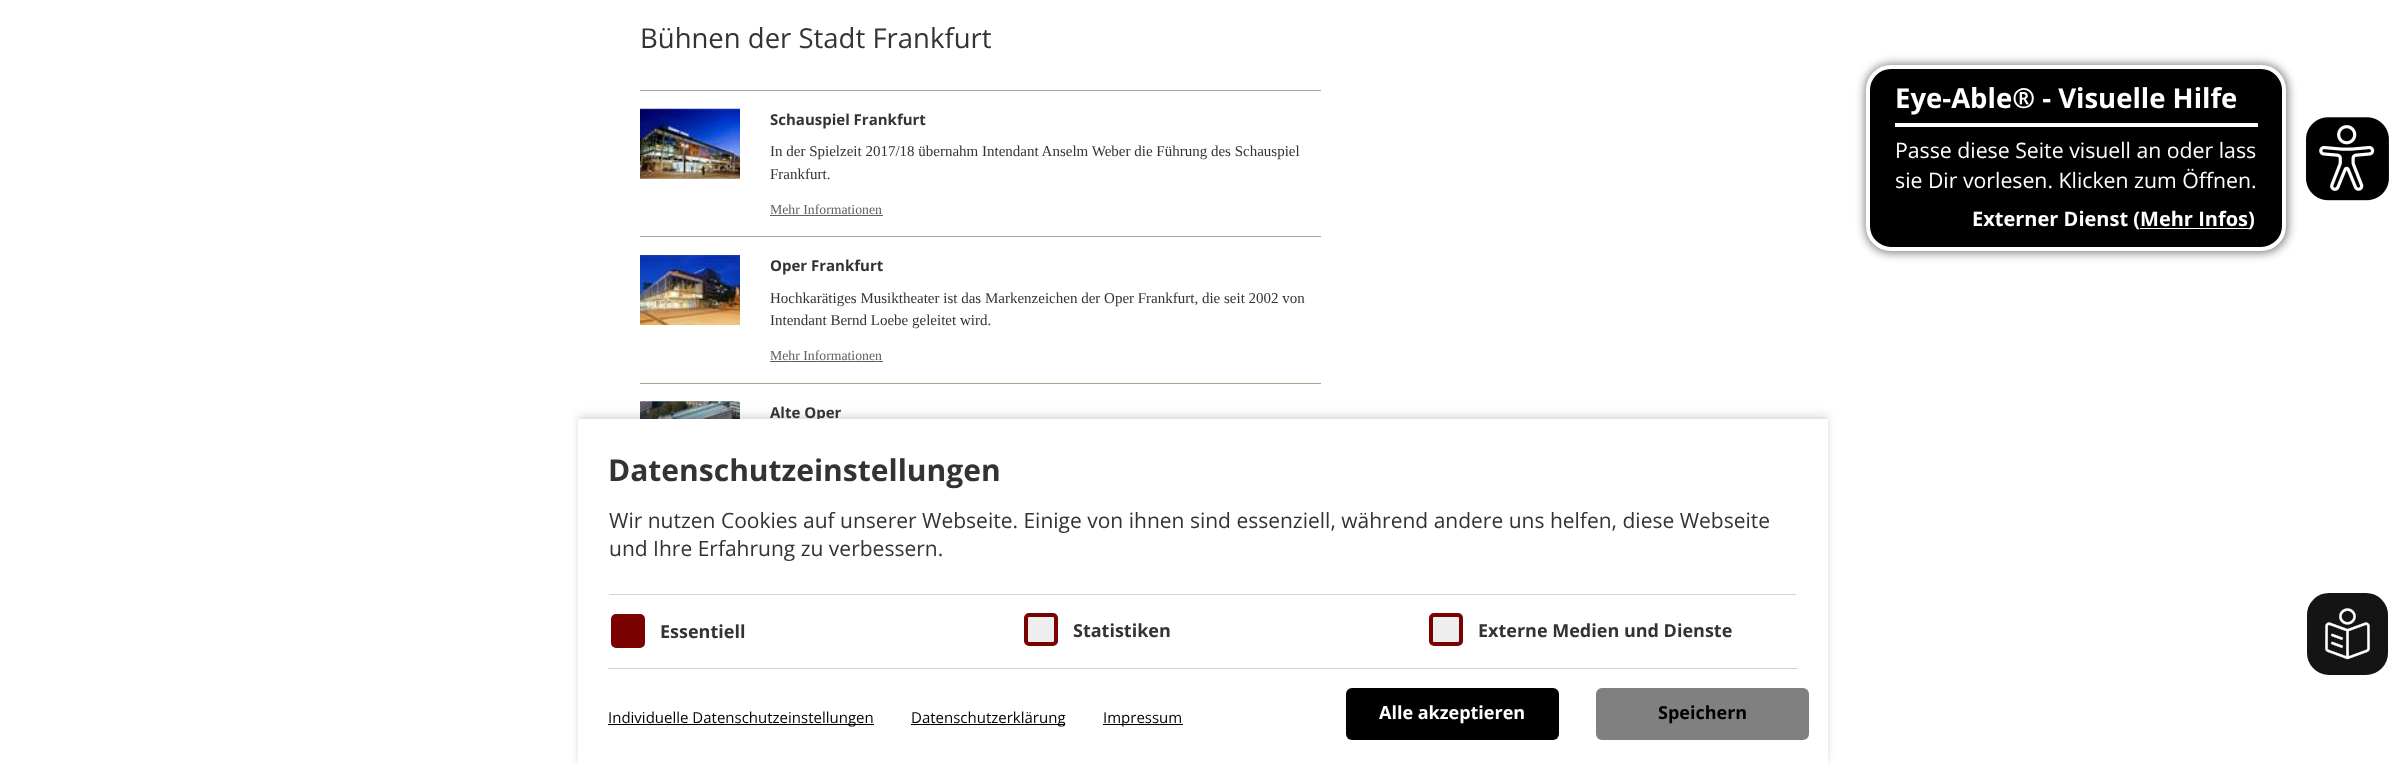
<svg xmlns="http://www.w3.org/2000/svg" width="2405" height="764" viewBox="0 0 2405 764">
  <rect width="100%" height="100%" fill="#fff"/>
  <path d="M640 90h681v1H640z" fill="#ada590"/>
  <path d="M640 236h681v1H640z" fill="#ada590"/>
  <image x="640" y="108" width="100" height="71" href="img/1.png"/>
  <path d="M770 215h113v1H770z" fill="#5f5f5f"/>
  <path d="M640 383h681v1H640z" fill="#ada590"/>
  <image x="640" y="255" width="100" height="70" href="img/2.png"/>
  <path d="M770 361h113v1H770z" fill="#5f5f5f"/>
  <image x="640" y="401" width="100" height="18" href="img/3.png"/>
  <rect x="1865" y="64" width="423" height="189" rx="26" fill="#00000080" filter="blur(5px)"/>
  <rect x="1868" y="67" width="416" height="182" rx="23" fill="#000" stroke="#fff" stroke-width="4"/>
  <path d="M1895 123h363v4H1895z" fill="#fff"/>
  <path d="M2140 228h109v1H2140z" fill="#fff"/>
  <image x="2306" y="117" width="83" height="84" href="img/4.png"/>
  <path d="M578 418h1250v346H578z" fill="#00000014" filter="blur(2px)"/>
  <path d="M578 414h1250v346H578z" fill="#32325d1c" filter="blur(4px)"/>
  <rect x="2305.5" y="591.5" width="84" height="85" rx="23.5" fill="#151414" stroke="#fff" stroke-width="3"/>
  <image x="2325" y="608" width="45" height="52" href="img/5.png"/>
  <text x="640" y="48" font-family="Open Sans" font-size="27.5" fill="#333">Bühnen der Stadt Frankfurt</text>
  <text x="770" y="125" font-family="Open Sans" font-size="15" font-weight="bold" fill="#333">Schauspiel Frankfurt</text>
  <g font-family="Liberation Serif" font-size="15" fill="#333">
    <text x="770" y="156">In der Spielzeit 2017/18 übernahm Intendant Anselm Weber die Führung des Schauspiel</text>
    <text x="770" y="179">Frankfurt.</text>
  </g>
  <text x="770" y="214" font-family="Liberation Serif" font-size="13.75" fill="#5f5f5f">Mehr Informationen</text>
  <text x="770" y="271" font-family="Open Sans" font-size="15" font-weight="bold" fill="#333">Oper Frankfurt</text>
  <g font-family="Liberation Serif" font-size="15" fill="#333">
    <text x="770" y="303">Hochkarätiges Musiktheater ist das Markenzeichen der Oper Frankfurt, die seit 2002 von</text>
    <text x="770" y="325">Intendant Bernd Loebe geleitet wird.</text>
  </g>
  <text x="770" y="360" font-family="Liberation Serif" font-size="13.75" fill="#5f5f5f">Mehr Informationen</text>
  <text x="770" y="418" font-family="Open Sans" font-size="15" font-weight="bold" fill="#333">Alte Oper</text>
  <text x="1895" y="108" font-family="Open Sans" font-size="27.5" font-weight="bold" fill="#fff">Eye-Able® - Visuelle Hilfe</text>
  <g font-family="Open Sans" font-size="21.25" fill="#fff">
    <text x="1895" y="158">Passe diese Seite visuell an oder lass</text>
    <text x="1895" y="188">sie Dir vorlesen. Klicken zum Öffnen.</text>
  </g>
  <g font-family="Open Sans" font-size="20" font-weight="bold" fill="#fff">
    <text x="1972" y="226">Externer Dienst (Mehr Infos</text>
    <text x="2248" y="226">)</text>
  </g>
  <path d="M578 419h1250v345H578z" fill="#fff"/>
  <text x="608" y="481" font-family="Open Sans" font-size="30" font-weight="bold" fill="#333">Datenschutzeinstellungen</text>
  <path d="M609 594h1187v1H609z" fill="#d3d3d3"/>
  <g font-family="Open Sans" font-size="21" fill="#333">
    <text x="609" y="528">Wir nutzen Cookies auf unserer Webseite. Einige von ihnen sind essenziell, während andere uns helfen, diese Webseite</text>
    <text x="609" y="556">und Ihre Erfahrung zu verbessern.</text>
  </g>
  <rect x="613" y="616" width="30" height="30" rx="3" fill="#7a0200" stroke="#7a0200" stroke-width="4"/>
  <text x="660" y="638" font-family="Open Sans" font-size="18" font-weight="bold" fill="#333">Essentiell</text>
  <rect x="1026" y="615" width="30" height="29" rx="3" fill="#eee" stroke="#7a0200" stroke-width="4"/>
  <text x="1073" y="637" font-family="Open Sans" font-size="18" font-weight="bold" fill="#333">Statistiken</text>
  <rect x="1431" y="615" width="30" height="29" rx="3" fill="#eee" stroke="#7a0200" stroke-width="4"/>
  <text x="1478" y="637" font-family="Open Sans" font-size="18" font-weight="bold" fill="#333">Externe Medien und Dienste</text>
  <path d="M608 668h1190v1H608z" fill="#d3d3d3"/>
  <path d="M608 724h266v1H608z" fill="#000"/>
  <text x="608" y="723" font-family="Open Sans" font-size="15" fill="#000">Individuelle Datenschutzeinstellungen</text>
  <path d="M911 724h154v1H911z" fill="#000"/>
  <text x="911" y="723" font-family="Open Sans" font-size="15" fill="#000">Datenschutzerklärung</text>
  <path d="M1103 724h80v1H1103z" fill="#000"/>
  <text x="1103" y="723" font-family="Open Sans" font-size="15" fill="#000">Impressum</text>
  <rect x="1346" y="688" width="213" height="52" rx="6" fill="#000"/>
  <text x="1379" y="719" font-family="Open Sans" font-size="18" font-weight="bold" fill="#fff">Alle akzeptieren</text>
  <rect x="1596" y="688" width="213" height="52" rx="6" fill="#808080"/>
  <text x="1658" y="719" font-family="Open Sans" font-size="18" font-weight="bold" fill="#000">Speichern</text>
</svg>
